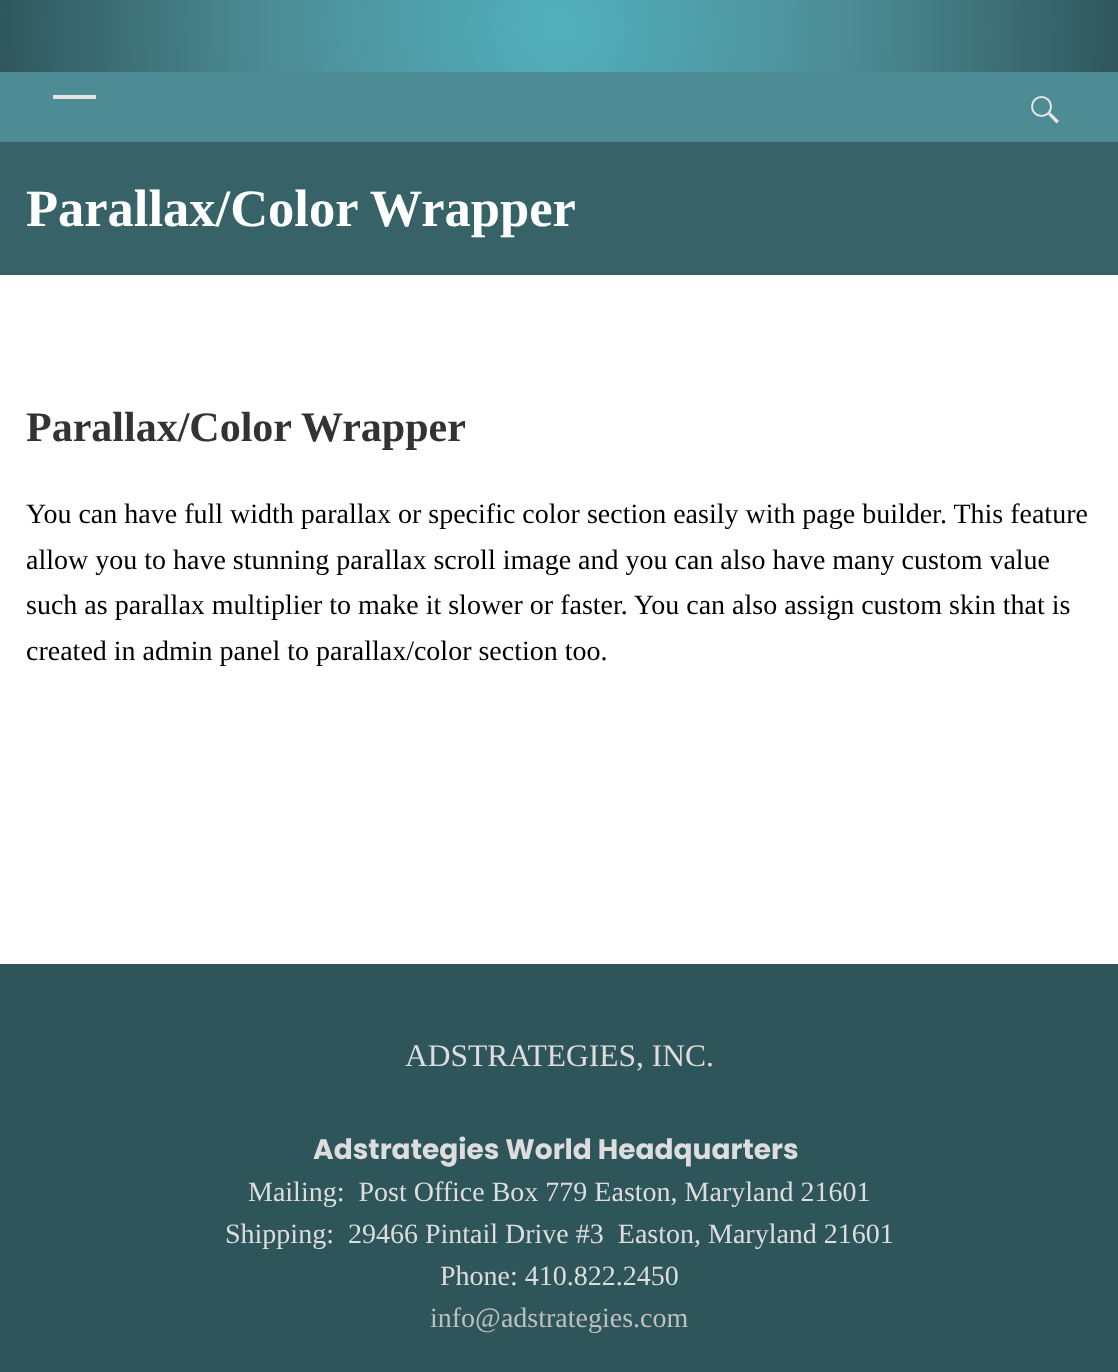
<svg xmlns="http://www.w3.org/2000/svg" width="1118" height="1372" viewBox="0 0 1118 1372">
  <defs>
    <radialGradient id="g1" gradientUnits="userSpaceOnUse" cx="559" cy="26" r="571"><stop offset="0" stop-color="#51b0bd"/><stop offset="0.51" stop-color="#4d8c95"/><stop offset="1" stop-color="#2e555a"/></radialGradient>
  </defs>
  <rect width="100%" height="100%" fill="#fff"/>
  <path d="M0 0h1118v72H0z" fill="url(#g1)"/>
  <path d="M0 72h1118v70H0z" fill="#4d8c95"/>
  <path d="M53 95h43v4H53z" fill="#e5e5e5"/>
  <path d="M1048 114.5L1050.5 112.5L1059 121L1056.5 123.5Z" fill="#e5e5e5"/>
  <circle cx="1041.5" cy="106.5" r="9.5" fill="none" stroke="#e5e5e5" stroke-width="2"/>
  <path d="M0 142h1118v133H0z" fill="#366268"/>
  <path d="M0 964h1118v408H0z" fill="#2e555a"/>
  <text x="26" y="226" font-family="Liberation Serif" font-size="52.5" font-weight="bold" fill="#fff">Parallax/Color Wrapper</text>
  <text x="26" y="441" font-family="Liberation Serif" font-size="42" font-weight="bold" fill="#333">Parallax/Color Wrapper</text>
  <g font-family="Liberation Serif" font-size="28" fill="#000">
    <text x="26" y="523">You can have full width parallax or specific color section easily with page builder. This feature</text>
    <text x="26" y="569">allow you to have stunning parallax scroll image and you can also have many custom value</text>
    <text x="26" y="614">such as parallax multiplier to make it slower or faster. You can also assign custom skin that is</text>
    <text x="26" y="660">created in admin panel to parallax/color section too.</text>
  </g>
  <text x="405" y="1066" font-family="Liberation Serif" font-size="31.5" fill="#ddd">ADSTRATEGIES, INC.</text>
  <text x="313" y="1159" font-family="Poppins" font-size="28" font-weight="bold" fill="#ddd">Adstrategies World Headquarters</text>
  <g font-family="Liberation Serif" font-size="28" fill="#ddd">
    <text x="248" y="1201" xml:space="preserve">Mailing:  Post Office Box 779 Easton, Maryland 21601</text>
    <text x="225" y="1243" xml:space="preserve">Shipping:  29466 Pintail Drive #3  Easton, Maryland 21601</text>
    <text x="440" y="1285">Phone: 410.822.2450</text>
  </g>
  <text x="430" y="1327" font-family="Liberation Serif" font-size="28" fill="#bfbfbf">info@adstrategies.com</text>
</svg>
